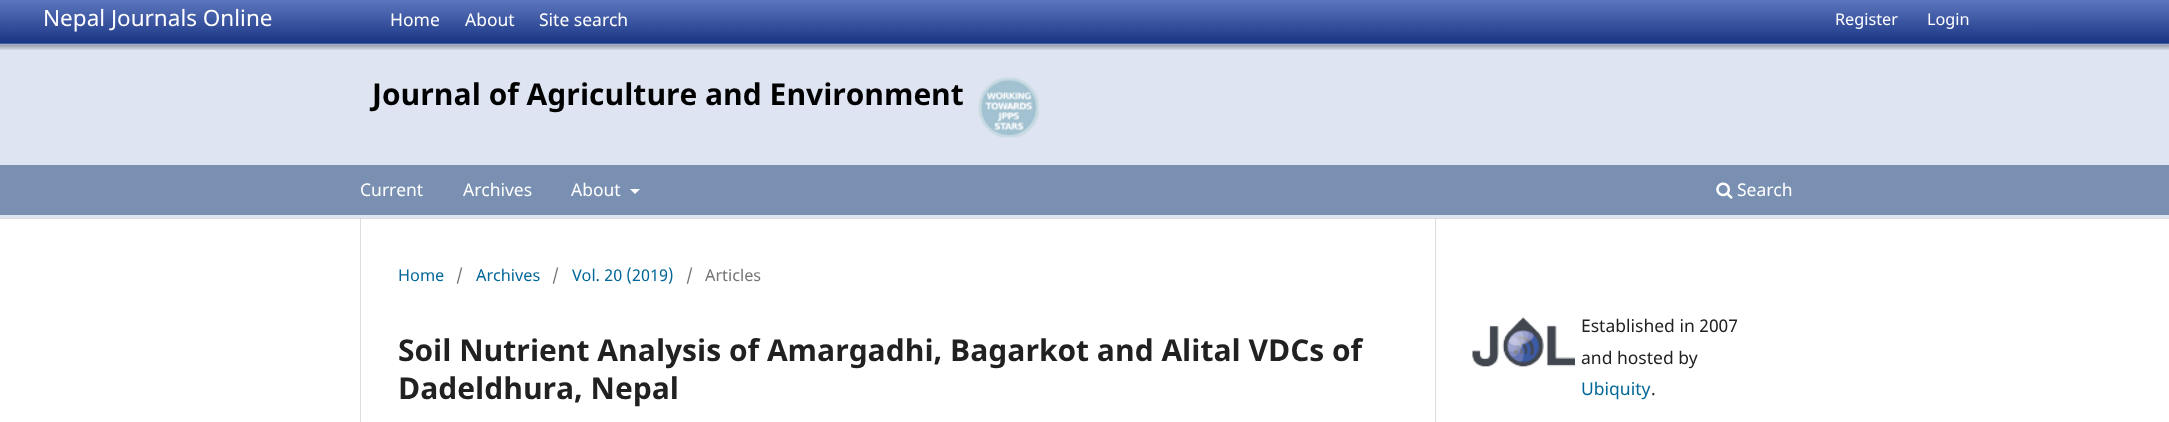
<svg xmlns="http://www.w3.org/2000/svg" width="2169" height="422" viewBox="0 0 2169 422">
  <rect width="100%" height="100%" fill="#fff"/>
  <path d="M0 50h2169v168H0z" fill="#dfe4f2"/>
  <path d="M0 218h2169v1H0z" fill="#ddd"/>
  <image x="0" y="0" width="2169" height="50" href="img/1.png"/>
  <path d="M0 165h2169v50H0z" fill="#7990b2"/>
  <path d="M630 189H640L635 194Z" fill="#fff"/>
  <image x="1716" y="182" width="17" height="17" href="img/2.png"/>
  <image x="978" y="77" width="61" height="61" href="img/3.png"/>
  <path d="M360 219h1v203H360z" fill="#ddd"/>
  <path d="M1435 219h1v203H1435z" fill="#ddd"/>
  <image x="1472" y="317" width="103" height="50" href="img/4.png"/>
  <text x="43" y="26" font-family="Noto Sans" font-size="22.5" fill="#fff">Nepal Journals Online</text>
  <g font-family="Noto Sans" font-size="17.5" fill="#fff">
    <text x="390" y="26">Home</text>
    <text x="465" y="26">About</text>
    <text x="539" y="26">Site search</text>
  </g>
  <g font-family="Noto Sans" font-size="16.25" fill="#fff">
    <text x="1835" y="25">Register</text>
    <text x="1927" y="25">Login</text>
  </g>
  <g font-family="Noto Sans" font-size="17.5" fill="#fff">
    <text x="360" y="196">Current</text>
    <text x="463" y="196">Archives</text>
    <text x="571" y="196">About</text>
    <text x="1737" y="196">Search</text>
  </g>
  <text x="372" y="105" font-family="Noto Sans" font-size="30" font-weight="bold" fill="#000">Journal of Agriculture and Environment</text>
  <text x="398" y="281" font-family="Noto Sans" font-size="16.25" fill="#006798">Home</text>
  <text x="456" y="281" font-family="Noto Sans" font-size="16.25" fill="#757575">/</text>
  <text x="476" y="281" font-family="Noto Sans" font-size="16.25" fill="#006798">Archives</text>
  <text x="552" y="281" font-family="Noto Sans" font-size="16.25" fill="#757575">/</text>
  <text x="572" y="281" font-family="Noto Sans" font-size="16.25" fill="#006798">Vol. 20 (2019)</text>
  <g font-family="Noto Sans" font-size="16.25" fill="#757575">
    <text x="686" y="281">/</text>
    <text x="705" y="281">Articles</text>
  </g>
  <g font-family="Noto Sans" font-size="30" font-weight="bold" fill="#212121">
    <text x="398" y="361">Soil Nutrient Analysis of Amargadhi, Bagarkot and Alital VDCs of</text>
    <text x="398" y="399">Dadeldhura, Nepal</text>
  </g>
  <g font-family="Noto Sans" font-size="17.5" fill="#212121">
    <text x="1581" y="332">Established in 2007</text>
    <text x="1581" y="364">and hosted by</text>
  </g>
  <text x="1581" y="395" font-family="Noto Sans" font-size="17.5" fill="#006798">Ubiquity</text>
  <text x="1651" y="395" font-family="Noto Sans" font-size="17.5" fill="#212121">.</text>
</svg>
